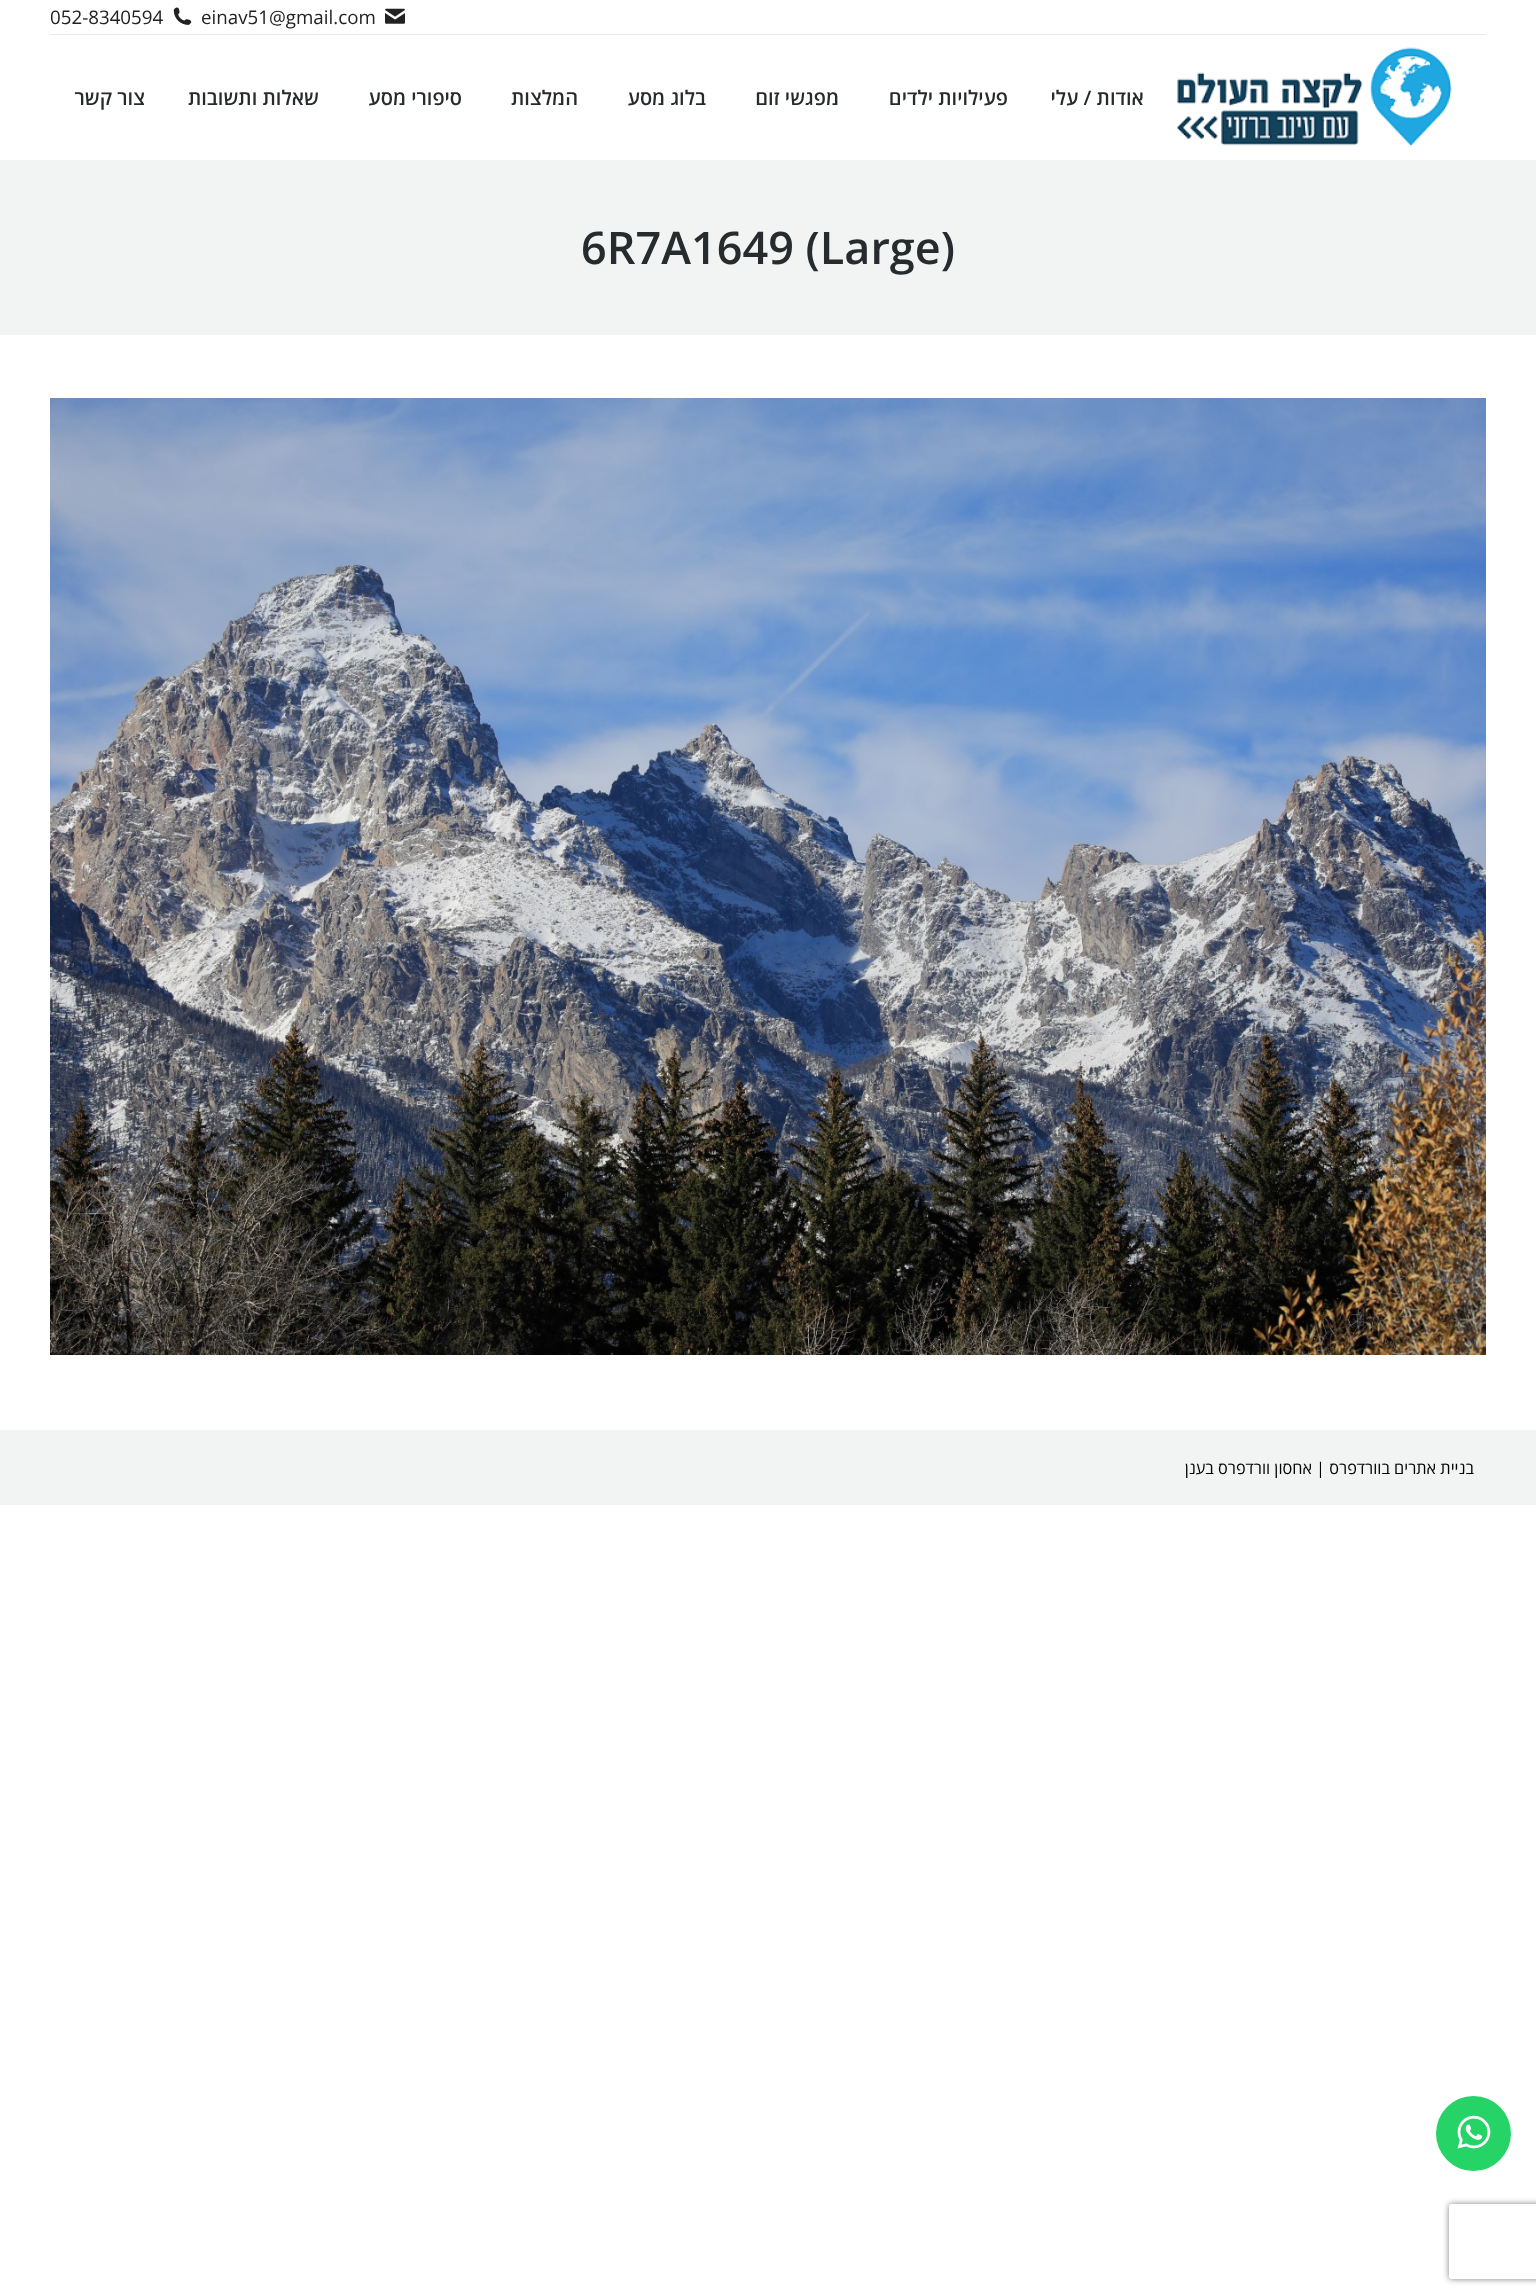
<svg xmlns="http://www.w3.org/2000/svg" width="1536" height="2296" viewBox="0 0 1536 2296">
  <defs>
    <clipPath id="clip1"><path d="M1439 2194H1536V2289H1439ZM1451.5 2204H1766.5C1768 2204 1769 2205 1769 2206.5V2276.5C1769 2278 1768 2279 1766.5 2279H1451.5C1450 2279 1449 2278 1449 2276.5V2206.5C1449 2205 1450 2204 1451.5 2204Z" clip-rule="evenodd"/></clipPath>
  </defs>
  <rect width="100%" height="100%" fill="#fff"/>
  <image x="385" y="8" width="20" height="16" href="img/1.png"/>
  <image x="173" y="7" width="19" height="18" href="img/2.png"/>
  <path d="M50 34h1436v1H50z" fill="#e7e7e8"/>
  <image x="1177" y="47" width="275" height="100" href="img/3.png"/>
  <path d="M0 160h1536v175H0z" fill="#f2f3f3"/>
  <image x="50" y="398" width="1436" height="957" href="img/4.png"/>
  <path d="M0 1430h1536v75H0z" fill="#f2f3f3"/>
  <circle cx="1473.5" cy="2133.5" r="37.5" fill="#25d366"/>
  <image x="1457" y="2115" width="34" height="34" href="img/5.png"/>
  <g clip-path="url(#clip1)">
    <rect x="1449" y="2204" width="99" height="75" rx="2.5" fill="#808080" filter="blur(3px)"/>
  </g>
  <g font-family="Open Sans" font-size="18.75" fill="#222">
    <text x="201" y="24">einav51@gmail.com</text>
    <text x="50" y="24">052-8340594</text>
  </g>
  <g font-family="Open Sans" font-size="20" font-weight="600" direction="rtl" fill="#262b2e">
    <text x="1144" y="105">אודות / עלי</text>
    <text x="1008" y="105">פעילויות ילדים</text>
    <text x="839" y="105">מפגשי זום</text>
    <text x="706" y="105">בלוג מסע</text>
    <text x="578" y="105">המלצות</text>
    <text x="462" y="105">סיפורי מסע</text>
    <text x="319" y="105">שאלות ותשובות</text>
    <text x="145" y="105">צור קשר</text>
  </g>
  <text x="581" y="264" font-family="Open Sans" font-size="45" font-weight="600" fill="#262b2e">6R7A1649 (Large)</text>
  <text x="1474" y="1474" font-family="Open Sans" font-size="16.25" direction="rtl" fill="#000">בניית אתרים בוורדפרס</text>
  <text x="1316" y="1474" font-family="Open Sans" font-size="16.25" fill="#000">|</text>
  <text x="1312" y="1474" font-family="Open Sans" font-size="16.25" direction="rtl" fill="#000">אחסון וורדפרס בענן</text>
</svg>
